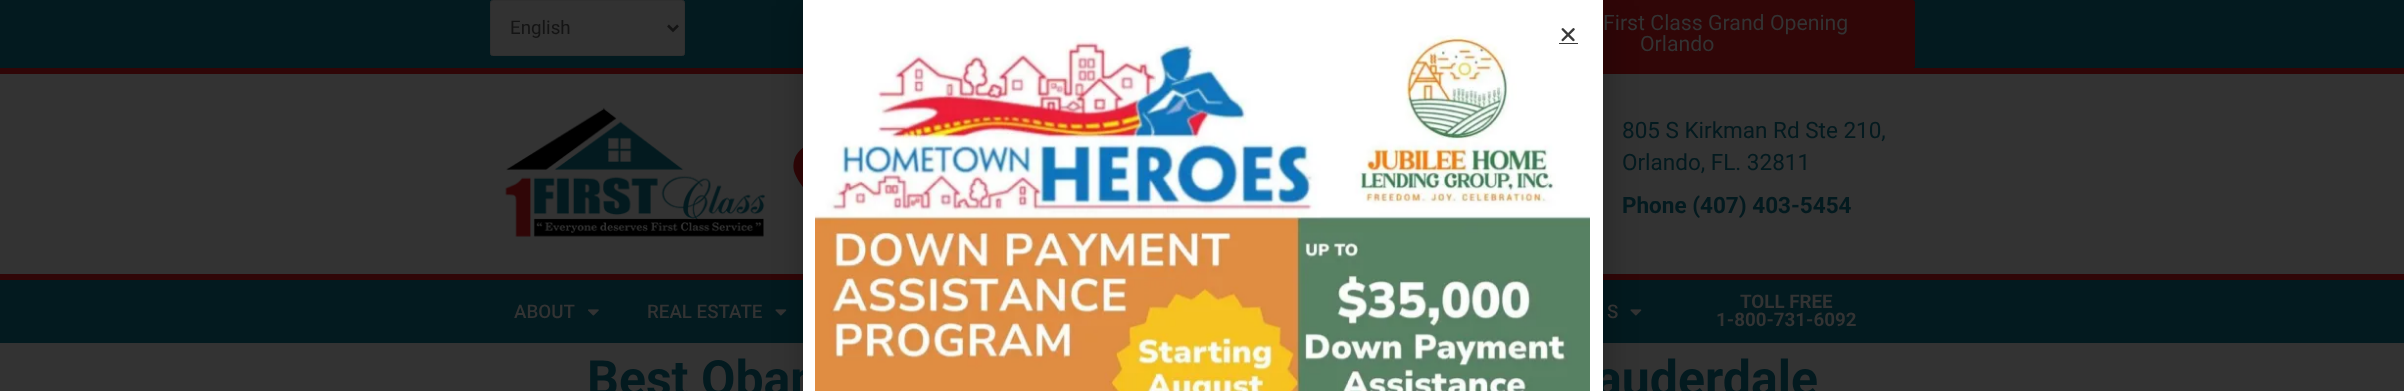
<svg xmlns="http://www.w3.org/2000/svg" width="2404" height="391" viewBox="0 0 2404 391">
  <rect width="100%" height="100%" fill="#333"/>
  <path d="M0 68h2404v6H0z" fill="#300607"/>
  <path d="M0 0h2404v68H0z" fill="#031a1f"/>
  <rect x="1440" width="475" height="68" rx="2.5" fill="#300607"/>
  <image x="505" y="107" width="260" height="130" href="img/3.png"/>
  <path d="M815 204L805 190C801 184 796 178 794 171C789 146 823 132 837 153C848 169 835 182 827 194L819 205C818 206 816 205 815 204ZM811 173C820 182 833 168 824 159C815 150 802 164 811 173Z" fill="#300607"/>
  <path d="M0 280h2404v63H0z" fill="#031a1f"/>
  <path d="M0 274h2404v6H0z" fill="#300607"/>
  <image x="775" y="309" width="12" height="7" href="img/5.png"/>
  <image x="1630" y="309" width="12" height="7" href="img/5.png"/>
  <path d="M801 6h808v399H801z" fill="#00000033" filter="blur(14.5px)"/>
  <rect x="490.5" y="0.5" width="194" height="55" rx="2" fill="#323232" stroke="#2f2f2f"/>
  <path d="M668 25.5L673 30.5L678 25.5" fill="none" stroke="#141414" stroke-width="2.5"/>
  <image x="587" y="309" width="12" height="7" href="img/4.png"/>
  <text x="510" y="34" font-family="Roboto" font-size="18.75" fill="#141414">English</text>
  <g font-family="Roboto" font-size="21.25" fill="#333">
    <text x="1603" y="30">First Class Grand Opening</text>
    <text x="1640" y="51">Orlando</text>
  </g>
  <g font-family="Roboto" font-size="22.5" fill="#031a1f">
    <text x="1622" y="138">805 S Kirkman Rd Ste 210,</text>
    <text x="1622" y="170">Orlando, FL. 32811</text>
  </g>
  <text x="1622" y="213" font-family="Roboto" font-size="22.5" font-weight="bold" fill="#031a1f">Phone (407) 403-5454</text>
  <g font-family="Roboto" font-size="18.75" font-weight="500" fill="#333">
    <text x="514" y="318">ABOUT</text>
    <text x="647" y="318">REAL ESTATE</text>
    <text x="1607" y="318">S</text>
  </g>
  <g font-family="Roboto" font-size="18.75" font-weight="bold" fill="#333">
    <text x="1740" y="308">TOLL FREE</text>
    <text x="1716" y="326">1-800-731-6092</text>
  </g>
  <g font-family="Roboto" font-size="50" font-weight="bold" fill="#031a1f">
    <text x="587" y="396">Best Obam</text>
    <text x="1595" y="396">auderdale</text>
  </g>
  <path d="M803 0h800v391H803z" fill="#fff"/>
  <image x="815" y="35" width="775" height="356" href="img/2.png"/>
  <image x="1561" y="28" width="14" height="14" href="img/1.png"/>
  <path d="M1559 43h19v1H1559z" fill="#3a3a3a"/>
</svg>
